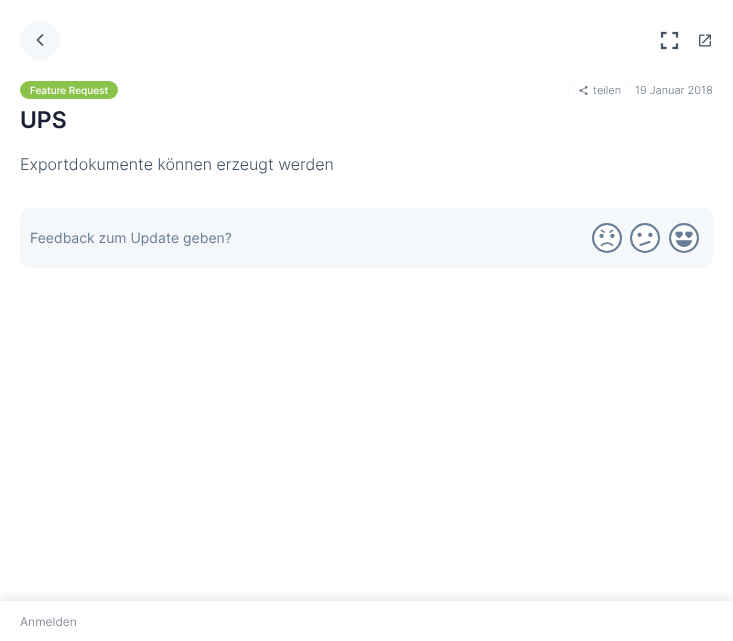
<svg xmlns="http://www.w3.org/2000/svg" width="733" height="641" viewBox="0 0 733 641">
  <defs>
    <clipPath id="clip1"><path d="M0 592h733v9H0z"/></clipPath>
  </defs>
  <rect width="100%" height="100%" fill="#fff"/>
  <circle cx="40" cy="40" r="20" fill="#f5f8fa"/>
  <image x="36" y="34" width="8" height="12" href="img/1.png"/>
  <image x="660" y="31" width="19" height="19" href="img/2.png"/>
  <image x="699" y="34" width="12" height="13" href="img/3.png"/>
  <rect x="20" y="81" width="98" height="18" rx="9" fill="#8bc34a"/>
  <rect x="568.5" y="82.5" width="61" height="16" rx="4.5" fill="none" stroke="#f7f9fb"/>
  <image x="579" y="86" width="9" height="9" href="img/4.png"/>
  <rect x="20" y="208" width="693" height="60" rx="10" fill="#f5f8fa"/>
  <circle cx="607" cy="238" r="14" fill="#6b7e97" stroke="#6b7e97" stroke-width="2"/>
  <image x="594" y="225" width="26" height="26" href="img/5.png"/>
  <circle cx="645" cy="238" r="14" fill="#6b7e97" stroke="#6b7e97" stroke-width="2"/>
  <image x="632" y="225" width="26" height="26" href="img/6.png"/>
  <circle cx="684" cy="238" r="14" fill="#6b7e97" stroke="#6b7e97" stroke-width="2"/>
  <image x="671" y="225" width="26" height="26" href="img/7.png"/>
  <g clip-path="url(#clip1)">
    <path d="M0 601h733v40H0z" fill="#32325d2e" filter="blur(7.5px)"/>
  </g>
  <text x="30" y="94" font-family="Inter" font-size="10" font-weight="500" fill="#fff">Feature Request</text>
  <g font-family="Inter" font-size="11" font-weight="300" fill="#687685">
    <text x="593" y="94">teilen</text>
    <text x="635" y="94">19 Januar 2018</text>
  </g>
  <text x="20" y="128" font-family="Inter" font-size="23" font-weight="600" fill="#1a1f36">UPS</text>
  <text x="20" y="170" font-family="Inter" font-size="16" font-weight="300" fill="#425466">Exportdokumente können erzeugt werden</text>
  <text x="30" y="243" font-family="Inter" font-size="14" fill="#6b7e97">Feedback zum Update geben?</text>
  <text x="20" y="626" font-family="Inter" font-size="12" fill="#8d8f9b">Anmelden</text>
</svg>
